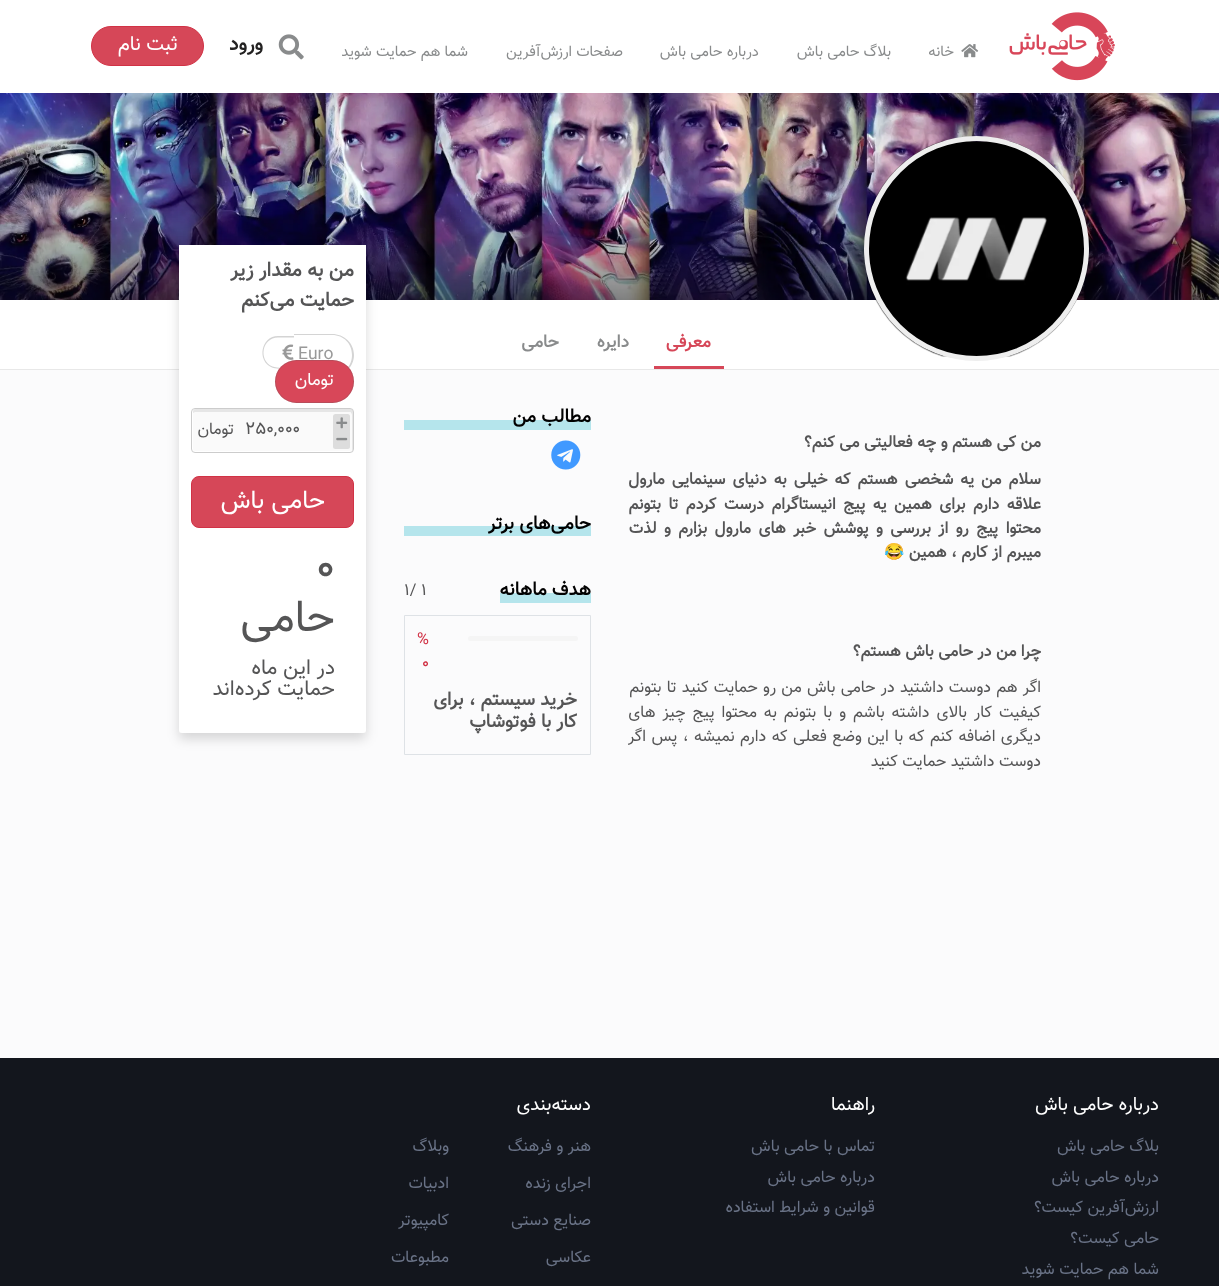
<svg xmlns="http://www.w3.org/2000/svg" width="1219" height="1286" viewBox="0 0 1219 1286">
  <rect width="100%" height="100%" fill="#fff"/>
  <image x="1009" y="12" width="106" height="69" href="img/1.png"/>
  <image x="961" y="44" width="18" height="14" href="img/2.png"/>
  <image x="278" y="34" width="26" height="26" href="img/3.png"/>
  <rect x="91.5" y="26.5" width="112" height="39" rx="19.5" fill="#d64758" stroke="#d13245"/>
  <path d="M0 370h1219v688H0z" fill="#fbfbfc"/>
  <image x="0" y="93" width="1219" height="207" href="img/4.png"/>
  <image x="868" y="141" width="216" height="216" href="img/5.png"/>
  <circle cx="976.5" cy="248.5" r="110" fill="none" stroke="#eee" stroke-width="5"/>
  <path d="M404 420h187v10H404z" fill="#b5e5ec"/>
  <image x="551" y="440" width="30" height="30" href="img/6.png"/>
  <path d="M404 526h187v10H404z" fill="#b5e5ec"/>
  <path d="M500 593h91v10H500z" fill="#b5e5ec"/>
  <path d="M404.5 615.5h186v139H404.5z" fill="none" stroke="#dee2e6"/>
  <rect x="468" y="636" width="110" height="5" rx="2.5" fill="#f5f5f5"/>
  <path d="M0 369h1219v1H0z" fill="#e8e8e8"/>
  <path d="M179 245h187v488H179z" fill="#fff"/>
  <rect x="179" y="251" width="187" height="488" rx="3" fill="#00000026" filter="blur(6px)"/>
  <rect x="179" y="245" width="187" height="488" rx="3" fill="#fff"/>
  <path d="M278 336H294V369C288 369 277 369.5 272 367.5C256.5 361 261 336 278 336ZM278 337.5H294V367.5C288 367.5 277.5 368.5 272.5 366.5C258 360.5 262 337.5 278 337.5Z" fill="#d4d4d4" fill-rule="evenodd"/>
  <path d="M294 334H332C344 334 354 343 354 355C354 367 344 376 332 376H294ZM294 335H332C344 335 352 344 352 355C352 366 344 375 332 375H294Z" fill="#d4d4d4" fill-rule="evenodd"/>
  <image x="282" y="344" width="12" height="16" href="img/7.png"/>
  <rect x="275" y="360" width="79" height="43" rx="21.5" fill="#d84759"/>
  <rect x="275.5" y="360.5" width="78" height="42" rx="21" fill="none" stroke="#5b5b5b42"/>
  <rect x="193" y="409" width="160" height="42" rx="2.5" fill="#fafafa"/>
  <path d="M195 412H350C351 412 352 414 352 415V451C353 450 353 449 353 448V412C353 410 352 409 350 409H196C194 409 193 410 193 412V413Z" fill="#e6e6e6"/>
  <rect x="191.5" y="408.5" width="162" height="44" rx="3.5" fill="none" stroke="#ccc"/>
  <rect x="333" y="414" width="17" height="19" rx="2.5" fill="#ddd"/>
  <image x="336" y="417" width="12" height="12" href="img/8.png"/>
  <rect x="333" y="430" width="17" height="19" rx="2.5" fill="#ddd"/>
  <image x="336" y="437" width="12" height="4" href="img/9.png"/>
  <rect x="191.5" y="476.5" width="162" height="51" rx="7.5" fill="#d64758" stroke="#d13245"/>
  <path d="M654 366h70v3H654z" fill="#d64758"/>
  <path d="M0 1058h1219v228H0z" fill="#13161d"/>
  <g font-family="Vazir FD" font-size="15" direction="rtl" fill="#898b8c">
    <text x="954" y="56">خانه</text>
    <text x="891" y="56">بلاگ حامی باش</text>
    <text x="759" y="56">درباره حامی باش</text>
    <text x="623" y="56">صفحات ارزش‌آفرین</text>
    <text x="468" y="56">شما هم حمایت شوید</text>
  </g>
  <text x="263" y="50" font-family="Vazir FD" font-size="20" font-weight="bold" direction="rtl" fill="#232222">ورود</text>
  <text x="178" y="50" font-family="Vazir FD" font-size="20" direction="rtl" fill="#fff">ثبت نام</text>
  <g font-family="Vazir FD" font-size="16.25" font-weight="bold" direction="rtl" fill="#555556">
    <text x="1041" y="447">من کی هستم و چه فعاليتی می کنم؟</text>
    <text x="1041" y="484" word-spacing="2.5">سلام من یه شخصی هستم که خیلی به دنیای سینمایی مارول</text>
    <text x="1041" y="509" word-spacing="3.1">علاقه دارم برای همین یه پیج انیستاگرام درست کردم تا بتونم</text>
    <text x="1041" y="533" word-spacing="3">محتوا پیج رو از بررسی‌ و پوشش خبر های مارول بزارم و لذت</text>
    <text x="1041" y="557">میبرم از کارم ، همین</text>
  </g>
  <text x="905" y="557" font-family="Noto Color Emoji" font-size="16.25" font-weight="bold" direction="rtl" fill="#555556">😂</text>
  <text x="1041" y="656" font-family="Vazir FD" font-size="16.25" font-weight="bold" direction="rtl" fill="#555556">چرا من در حامی باش هستم؟</text>
  <g font-family="Vazir FD" font-size="16.25" direction="rtl" fill="#555556">
    <text x="1041" y="692" word-spacing="0.75">اگر هم دوست داشتید در حامی باش من رو حمایت کنید تا بتونم</text>
    <text x="1041" y="717" word-spacing="2.5">کیفیت کار بالای داشته باشم و با بتونم به محتوا پیج چیز های</text>
    <text x="1041" y="741" word-spacing="1">دیگری اضافه کنم که با این وضع فعلی که دارم نمیشه ، پس اگر</text>
    <text x="1041" y="766">دوست داشتید حمایت کنید</text>
  </g>
  <g font-family="Vazir FD" font-size="18.75" font-weight="bold" direction="rtl" fill="#010101">
    <text x="591" y="422">مطالب من</text>
    <text x="591" y="529">حامی‌های برتر</text>
    <text x="591" y="595">هدف ماهانه</text>
  </g>
  <g font-family="Vazir FD" font-size="16.25" fill="#555556">
    <text x="421" y="595">1</text>
    <text x="404" y="595">1/</text>
  </g>
  <g font-family="Vazir FD" font-size="16.25" fill="#d13245">
    <text x="417" y="644">%</text>
    <text x="422" y="668">0</text>
  </g>
  <g font-family="Vazir FD" font-size="18.75" font-weight="bold" direction="rtl" fill="#555556">
    <text x="577" y="705">خرید سیستم ، برای</text>
    <text x="577" y="727">کار با فوتوشاپ</text>
  </g>
  <g font-family="Vazir FD" font-size="20" font-weight="bold" direction="rtl" fill="#555556">
    <text x="354" y="276">من به مقدار زیر</text>
    <text x="354" y="306">حمایت می‌کنم</text>
  </g>
  <text x="298" y="359" font-family="Vazir FD" font-size="17.5" fill="#999">Euro</text>
  <text x="334" y="385" font-family="Vazir FD" font-size="17.5" direction="rtl" fill="#fff">تومان</text>
  <text x="245" y="434" font-family="Vazir FD" font-size="17.5" fill="#555556">250,000</text>
  <text x="234" y="434" font-family="Vazir FD" font-size="16.25" direction="rtl" fill="#555556">تومان</text>
  <text x="325" y="508" font-family="Vazir FD" font-size="25" direction="rtl" fill="#fff">حامی باش</text>
  <text x="316" y="581" font-family="Vazir FD" font-size="44" fill="#555556">0</text>
  <text x="335" y="631" font-family="Vazir FD" font-size="44" direction="rtl" fill="#555556">حامی</text>
  <g font-family="Vazir FD" font-size="21.25" direction="rtl" fill="#555556">
    <text x="335" y="674">در این ماه</text>
    <text x="335" y="695">حمایت کرده‌اند</text>
  </g>
  <text x="711" y="347" font-family="Vazir FD" font-size="17.5" font-weight="bold" direction="rtl" fill="#d64758">معرفی</text>
  <g font-family="Vazir FD" font-size="17.5" font-weight="bold" direction="rtl" fill="#898b8c">
    <text x="629" y="347">دایره</text>
    <text x="559" y="347">حامی</text>
  </g>
  <text x="1159" y="1110" font-family="Vazir FD" font-size="18.75" direction="rtl" fill="#fff">درباره حامی باش</text>
  <g font-family="Vazir FD" font-size="16.25" direction="rtl" fill="#697286">
    <text x="1159" y="1151">بلاگ حامی باش</text>
    <text x="1159" y="1182">درباره حامی باش</text>
    <text x="1159" y="1212">ارزش‌آفرین کیست؟</text>
    <text x="1159" y="1243">حامی کیست؟</text>
    <text x="1159" y="1274">شما هم حمایت شوید</text>
  </g>
  <text x="875" y="1110" font-family="Vazir FD" font-size="18.75" direction="rtl" fill="#fff">راهنما</text>
  <g font-family="Vazir FD" font-size="16.25" direction="rtl" fill="#697286">
    <text x="875" y="1151">تماس با حامی باش</text>
    <text x="875" y="1182">درباره حامی باش</text>
    <text x="875" y="1212">قوانین و شرایط استفاده</text>
  </g>
  <text x="591" y="1110" font-family="Vazir FD" font-size="18.75" direction="rtl" fill="#fff">دسته‌بندی</text>
  <g font-family="Vazir FD" font-size="16.25" direction="rtl" fill="#697286">
    <text x="591" y="1151">هنر و فرهنگ</text>
    <text x="591" y="1188">اجرای زنده</text>
    <text x="591" y="1225">صنایع دستی</text>
    <text x="591" y="1262">عکاسی</text>
    <text x="449" y="1151">وبلاگ</text>
    <text x="449" y="1188">ادبیات</text>
    <text x="449" y="1225">کامپیوتر</text>
    <text x="449" y="1262">مطبوعات</text>
  </g>
</svg>
